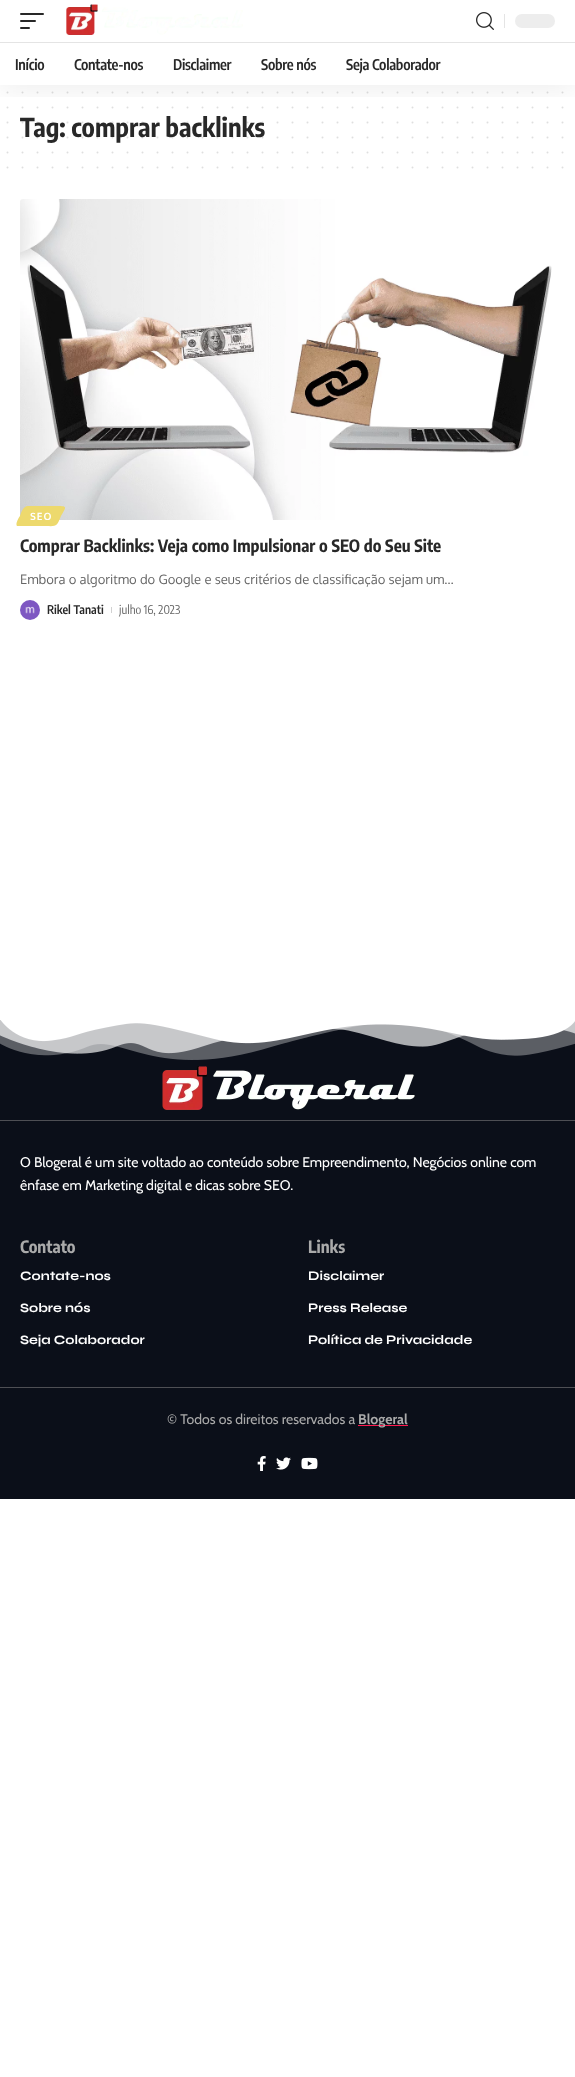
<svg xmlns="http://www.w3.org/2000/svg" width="575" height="2077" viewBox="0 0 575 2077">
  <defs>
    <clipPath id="clip1"><path d="M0 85h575v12H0z"/></clipPath>
  </defs>
  <rect width="100%" height="100%" fill="#fff"/>
  <path d="M7.5 92.5H562.7" fill="none" stroke="#dfdfdf" stroke-width="2" stroke-linecap="round" stroke-dasharray="0 15"/>
  <path d="M7.5 107.5H562.7" fill="none" stroke="#dfdfdf" stroke-width="2" stroke-linecap="round" stroke-dasharray="0 15"/>
  <path d="M7.5 152.5H562.7" fill="none" stroke="#dfdfdf" stroke-width="2" stroke-linecap="round" stroke-dasharray="0 15"/>
  <path d="M7.5 167.5H562.7" fill="none" stroke="#dfdfdf" stroke-width="2" stroke-linecap="round" stroke-dasharray="0 15"/>
  <image x="20" y="199" width="532" height="321" href="img/3.png"/>
  <path d="M28 506H57C68 506 66 507 61 516C56 528 57 526 42 526H17C15 524 19 517 20 516C21 513 23 506 28 506Z" fill="#edd96d"/>
  <image x="20" y="600" width="20" height="20" href="img/4.png"/>
  <path d="M111 607h1v6H111z" fill="#d1d1d1"/>
  <path d="M0 1020h575v479H0z" fill="#0b0f19"/>
  <image x="0" y="1020" width="575" height="40" href="img/5.png"/>
  <image x="162" y="1066" width="253" height="44" href="img/6.png"/>
  <path d="M0 1120h575v1H0z" fill="#4e4f54"/>
  <path d="M0 1387h575v1H0z" fill="#4e4f54"/>
  <path d="M358 1425h50v1H358z" fill="#ff184e"/>
  <image x="257" y="1456" width="9" height="15" href="img/7.png"/>
  <image x="276" y="1457" width="15" height="13" href="img/8.png"/>
  <image x="301" y="1457" width="17" height="13" href="img/9.png"/>
  <text x="20" y="137" font-family="Encode Sans Condensed" font-size="26" font-weight="bold" fill="#282828">Tag: comprar backlinks</text>
  <path d="M7.5 122.5H562.7" fill="none" stroke="#28282826" stroke-width="2" stroke-linecap="round" stroke-dasharray="0 15"/>
  <g clip-path="url(#clip1)">
    <path d="M0 4h575v85H0z" fill="#00000012" filter="blur(15px)"/>
  </g>
  <g font-family="Encode Sans Condensed" font-size="14.75" font-weight="600" letter-spacing="-0.3" fill="#282828">
    <text x="346" y="70">Seja Colaborador</text>
    <text x="261" y="70">Sobre nós</text>
    <text x="173" y="70">Disclaimer</text>
    <text x="74" y="70">Contate-nos</text>
    <text x="15" y="70">Início</text>
  </g>
  <path d="M0 42h575v1H0z" fill="#e4e4e4"/>
  <rect x="515" y="14" width="40" height="14" rx="7" fill="#ededed"/>
  <path d="M504 14h1v14H504z" fill="#e4e4e4"/>
  <image x="476" y="12" width="18" height="18" href="img/2.png"/>
  <rect x="20" y="27" width="10" height="2" rx="1" fill="#282828"/>
  <rect x="20" y="20" width="16" height="2" rx="1" fill="#282828"/>
  <rect x="20" y="13" width="24" height="2" rx="1" fill="#282828"/>
  <image x="66" y="4" width="177" height="31" href="img/1.png"/>
  <path d="M7.5 137.5H562.7" fill="none" stroke="#28282826" stroke-width="2" stroke-linecap="round" stroke-dasharray="0 15"/>
  <text x="30" y="520" font-family="Oxygen" font-size="10" font-weight="bold" letter-spacing="1" fill="#fff">SEO</text>
  <text x="20" y="552" font-family="Encode Sans Condensed" font-size="17" font-weight="bold" fill="#282828">Comprar Backlinks: Veja como Impulsionar o SEO do Seu Site</text>
  <text x="20" y="584" font-family="Oxygen" font-size="13" fill="#666">Embora o algoritmo do Google e seus critérios de classificação sejam um…</text>
  <text x="47" y="614" font-family="Encode Sans Condensed" font-size="12" font-weight="600" fill="#282828">Rikel Tanati</text>
  <text x="119" y="614" font-family="Encode Sans Condensed" font-size="12" fill="#666">julho 16, 2023</text>
  <g font-family="Cabin" font-size="14" fill="#fff">
    <text x="20" y="1167">O Blogeral é um site voltado ao conteúdo sobre Empreendimento, Negócios online com</text>
    <text x="20" y="1190">ênfase em Marketing digital e dicas sobre SEO.</text>
  </g>
  <text x="20" y="1253" font-family="Encode Sans Condensed" font-size="17" font-weight="bold" fill="#aaa">Contato</text>
  <g font-family="Syne" font-size="13" font-weight="bold" fill="#fff">
    <text x="20" y="1280">Contate-nos</text>
    <text x="20" y="1312">Sobre nós</text>
    <text x="20" y="1344">Seja Colaborador</text>
  </g>
  <text x="308" y="1253" font-family="Encode Sans Condensed" font-size="17" font-weight="bold" fill="#aaa">Links</text>
  <g font-family="Syne" font-size="13" font-weight="bold" fill="#fff">
    <text x="308" y="1280">Disclaimer</text>
    <text x="308" y="1312">Press Release</text>
    <text x="308" y="1344">Política de Privacidade</text>
  </g>
  <text x="167" y="1424" font-family="Cabin" font-size="14" fill="#aaa">© Todos os direitos reservados a</text>
  <text x="358" y="1424" font-family="Cabin" font-size="14" font-weight="bold" fill="#aaa">Blogeral</text>
</svg>
